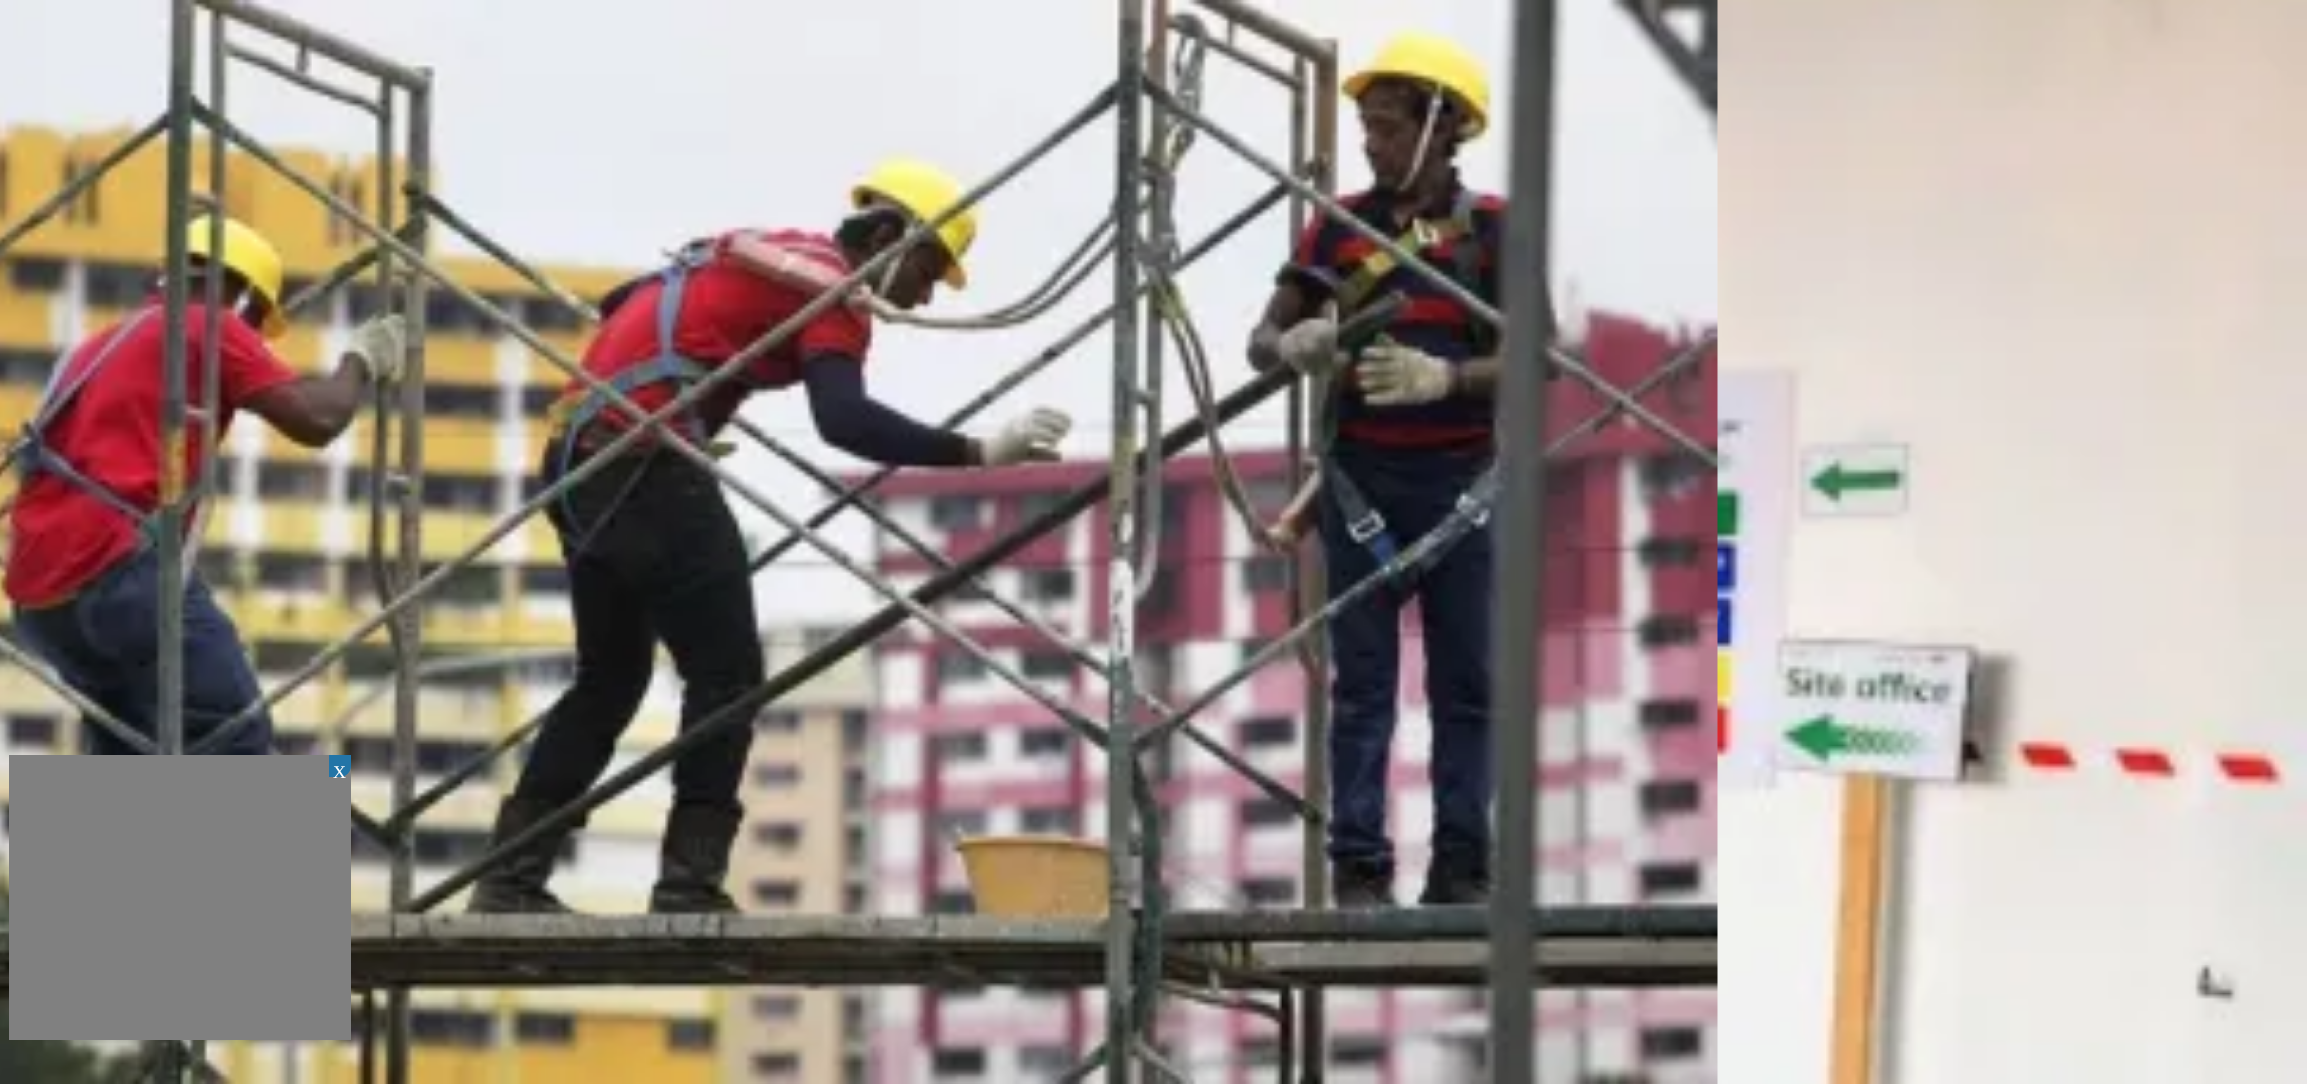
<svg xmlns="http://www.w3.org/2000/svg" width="2307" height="1084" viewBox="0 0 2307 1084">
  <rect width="100%" height="100%" fill="#fff"/>
  <image x="1717" y="0" width="590" height="1084" href="img/2.png"/>
  <image x="0" y="0" width="1718" height="1084" href="img/1.png"/>
  <path d="M9 755h342v285H9z" fill="#808080"/>
  <path d="M329 755H351V766C351 772 346 777 340 777H329Z" fill="#2375a7"/>
  <text x="333" y="778" font-family="Liberation Serif" font-size="18" fill="#fff">X</text>
</svg>
